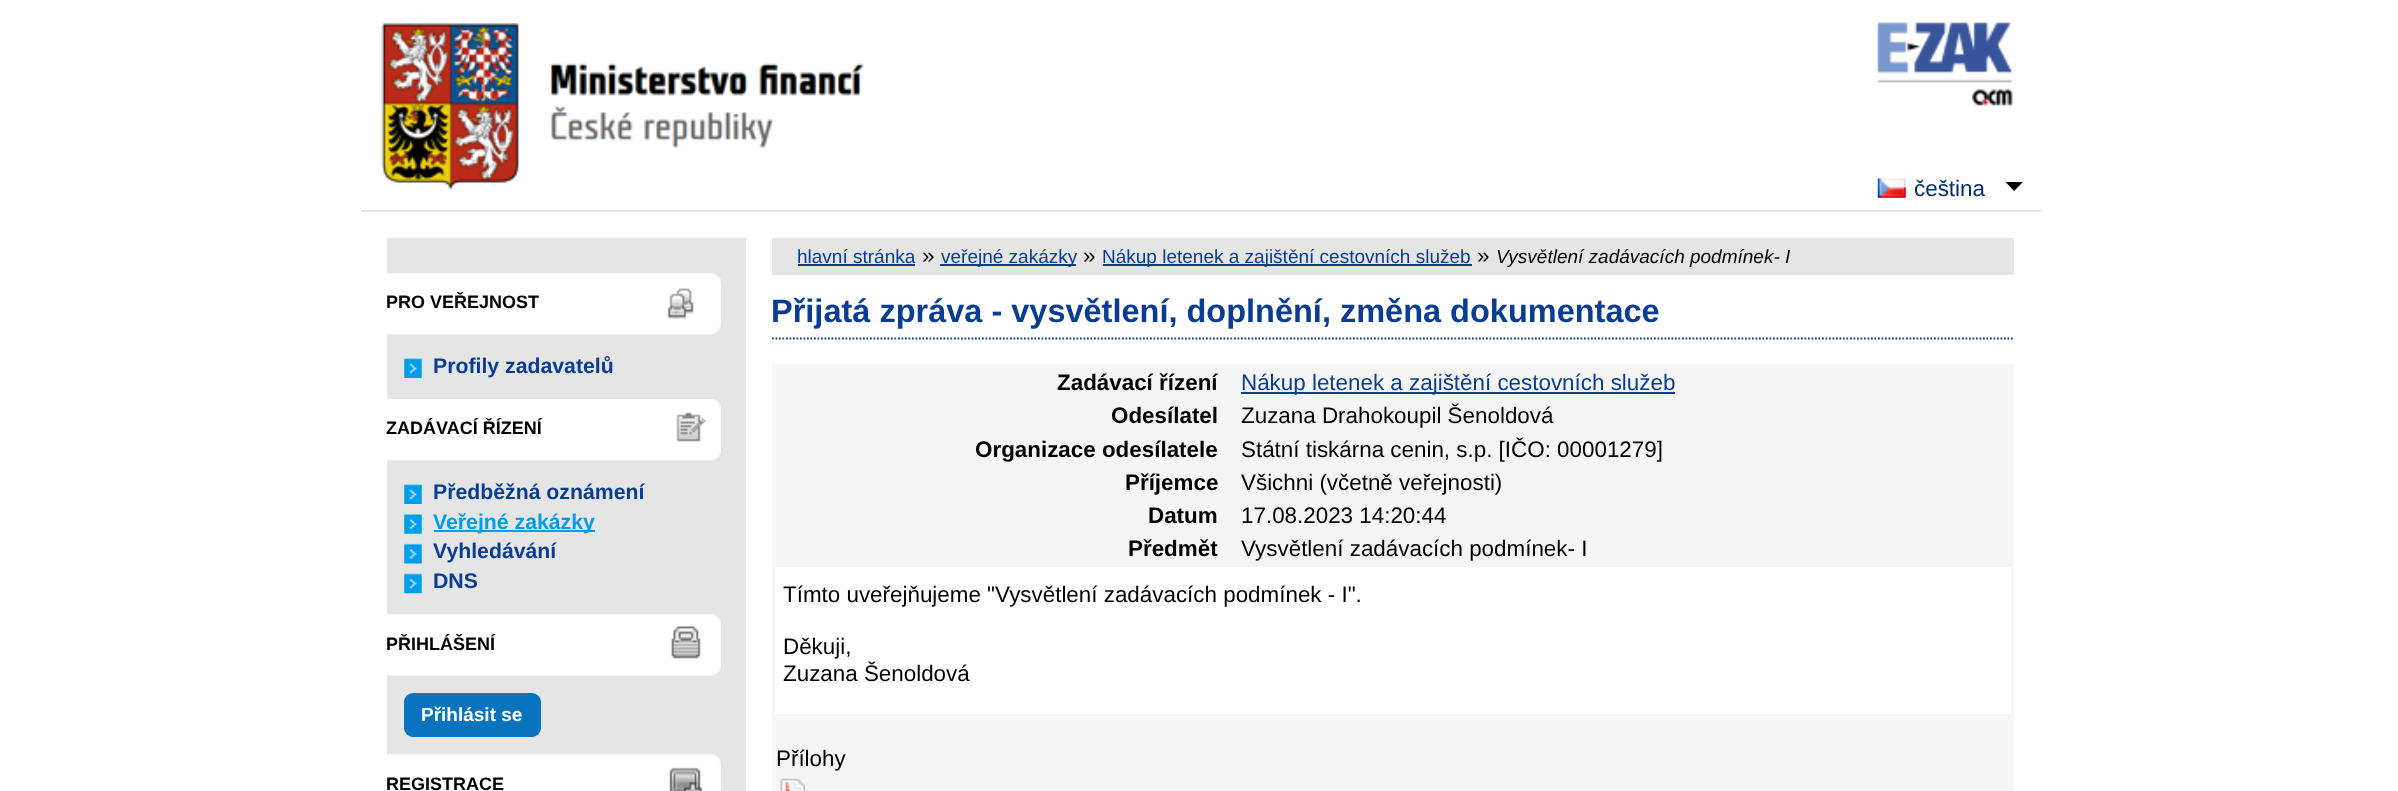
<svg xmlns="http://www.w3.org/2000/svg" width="2398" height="791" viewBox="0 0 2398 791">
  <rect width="100%" height="100%" fill="#fff"/>
  <path d="M361 210h1680v2H361z" fill="#e5e5e5"/>
  <image x="381" y="22" width="483" height="168" href="img/1.png"/>
  <image x="1877" y="22" width="136" height="84" href="img/2.png"/>
  <image x="1877" y="178" width="29" height="20" href="img/3.png"/>
  <path d="M2005.5 182H2023L2014 191Z" fill="#000"/>
  <path d="M387 238h359v553H387z" fill="#e5e5e5"/>
  <image x="387" y="273" width="334" height="62" href="img/4.png"/>
  <image x="404" y="358" width="18" height="20" href="img/5.png"/>
  <image x="387" y="399" width="334" height="62" href="img/6.png"/>
  <image x="404" y="484" width="18" height="20" href="img/5.png"/>
  <image x="404" y="514" width="18" height="20" href="img/7.png"/>
  <path d="M434 530h161v2H434z" fill="#009dea"/>
  <image x="404" y="543" width="18" height="21" href="img/8.png"/>
  <image x="404" y="573" width="18" height="21" href="img/9.png"/>
  <image x="387" y="614" width="334" height="62" href="img/10.png"/>
  <rect x="404" y="693" width="137" height="44" rx="9" fill="#0a73bd"/>
  <image x="387" y="754" width="334" height="37" href="img/11.png"/>
  <path d="M772 238h1242v37H772z" fill="#e5e5e5"/>
  <path d="M798 264h117v2H798z" fill="#093d93"/>
  <path d="M940 264h136v2H940z" fill="#093d93"/>
  <path d="M1103 264h369v2H1103z" fill="#093d93"/>
  <path d="M772 338.5H2014" fill="none" stroke="#093d93" stroke-width="1.8" stroke-dasharray="1.75 1.75"/>
  <path d="M772 364h1242v427H772z" fill="#f5f5f5"/>
  <path d="M1241 392h434v2H1241z" fill="#093d93"/>
  <path d="M775 567h1236v147H775z" fill="#fff"/>
  <image x="780" y="778" width="25" height="13" href="img/12.png"/>
  <text x="1914" y="196" font-family="Liberation Sans" font-size="22.4" fill="#012d6b">čeština</text>
  <text x="386" y="308" font-family="Liberation Sans" font-size="18" font-weight="bold" fill="#000">PRO VEŘEJNOST</text>
  <text x="433" y="373" font-family="Liberation Sans" font-size="21.25" font-weight="bold" fill="#093d93">Profily zadavatelů</text>
  <text x="386" y="434" font-family="Liberation Sans" font-size="18" font-weight="bold" fill="#000">ZADÁVACÍ ŘÍZENÍ</text>
  <text x="433" y="499" font-family="Liberation Sans" font-size="21.25" font-weight="bold" fill="#093d93">Předběžná oznámení</text>
  <text x="433" y="529" font-family="Liberation Sans" font-size="21.25" font-weight="bold" fill="#009dea">Veřejné zakázky</text>
  <g font-family="Liberation Sans" font-size="21.25" font-weight="bold" fill="#093d93">
    <text x="433" y="558">Vyhledávání</text>
    <text x="433" y="588">DNS</text>
  </g>
  <text x="386" y="650" font-family="Liberation Sans" font-size="18" font-weight="bold" fill="#000">PŘIHLÁŠENÍ</text>
  <text x="421" y="721" font-family="Liberation Sans" font-size="19" font-weight="bold" fill="#fff">Přihlásit se</text>
  <text x="386" y="790" font-family="Liberation Sans" font-size="18" font-weight="bold" fill="#000">REGISTRACE</text>
  <text x="797" y="263" font-family="Liberation Sans" font-size="19" fill="#093d93">hlavní stránka</text>
  <text x="922" y="263" font-family="Liberation Sans" font-size="22.4" fill="#000">»</text>
  <text x="941" y="263" font-family="Liberation Sans" font-size="19" fill="#093d93">veřejné zakázky</text>
  <text x="1083" y="263" font-family="Liberation Sans" font-size="22.4" fill="#000">»</text>
  <text x="1102" y="263" font-family="Liberation Sans" font-size="19" fill="#093d93">Nákup letenek a zajištění cestovních služeb</text>
  <text x="1477" y="263" font-family="Liberation Sans" font-size="22.4" fill="#000">»</text>
  <text x="1496" y="263" font-family="Liberation Sans" font-size="19" font-style="italic" fill="#000">Vysvětlení zadávacích podmínek- I</text>
  <text x="771" y="322" font-family="Liberation Sans" font-size="32.5" font-weight="bold" fill="#093d93">Přijatá zpráva - vysvětlení, doplnění, změna dokumentace</text>
  <text x="1057" y="390" font-family="Liberation Sans" font-size="22.4" font-weight="bold" fill="#000">Zadávací řízení</text>
  <text x="1241" y="390" font-family="Liberation Sans" font-size="22.4" fill="#093d93">Nákup letenek a zajištění cestovních služeb</text>
  <text x="1111" y="423" font-family="Liberation Sans" font-size="22.4" font-weight="bold" fill="#000">Odesílatel</text>
  <text x="1241" y="423" font-family="Liberation Sans" font-size="22.4" fill="#000">Zuzana Drahokoupil Šenoldová</text>
  <text x="975" y="457" font-family="Liberation Sans" font-size="22.4" font-weight="bold" fill="#000">Organizace odesílatele</text>
  <text x="1241" y="457" font-family="Liberation Sans" font-size="22.4" fill="#000">Státní tiskárna cenin, s.p. [IČO: 00001279]</text>
  <text x="1125" y="490" font-family="Liberation Sans" font-size="22.4" font-weight="bold" fill="#000">Příjemce</text>
  <text x="1241" y="490" font-family="Liberation Sans" font-size="22.4" fill="#000">Všichni (včetně veřejnosti)</text>
  <text x="1148" y="523" font-family="Liberation Sans" font-size="22.4" font-weight="bold" fill="#000">Datum</text>
  <text x="1241" y="523" font-family="Liberation Sans" font-size="22.4" fill="#000">17.08.2023 14:20:44</text>
  <text x="1128" y="556" font-family="Liberation Sans" font-size="22.4" font-weight="bold" fill="#000">Předmět</text>
  <g font-family="Liberation Sans" font-size="22.4" fill="#000">
    <text x="1241" y="556">Vysvětlení zadávacích podmínek- I</text>
    <text x="783" y="602">Tímto uveřejňujeme "Vysvětlení zadávacích podmínek - I".</text>
    <text x="783" y="654">Děkuji,</text>
    <text x="783" y="681">Zuzana Šenoldová</text>
    <text x="776" y="766">Přílohy</text>
  </g>
</svg>
